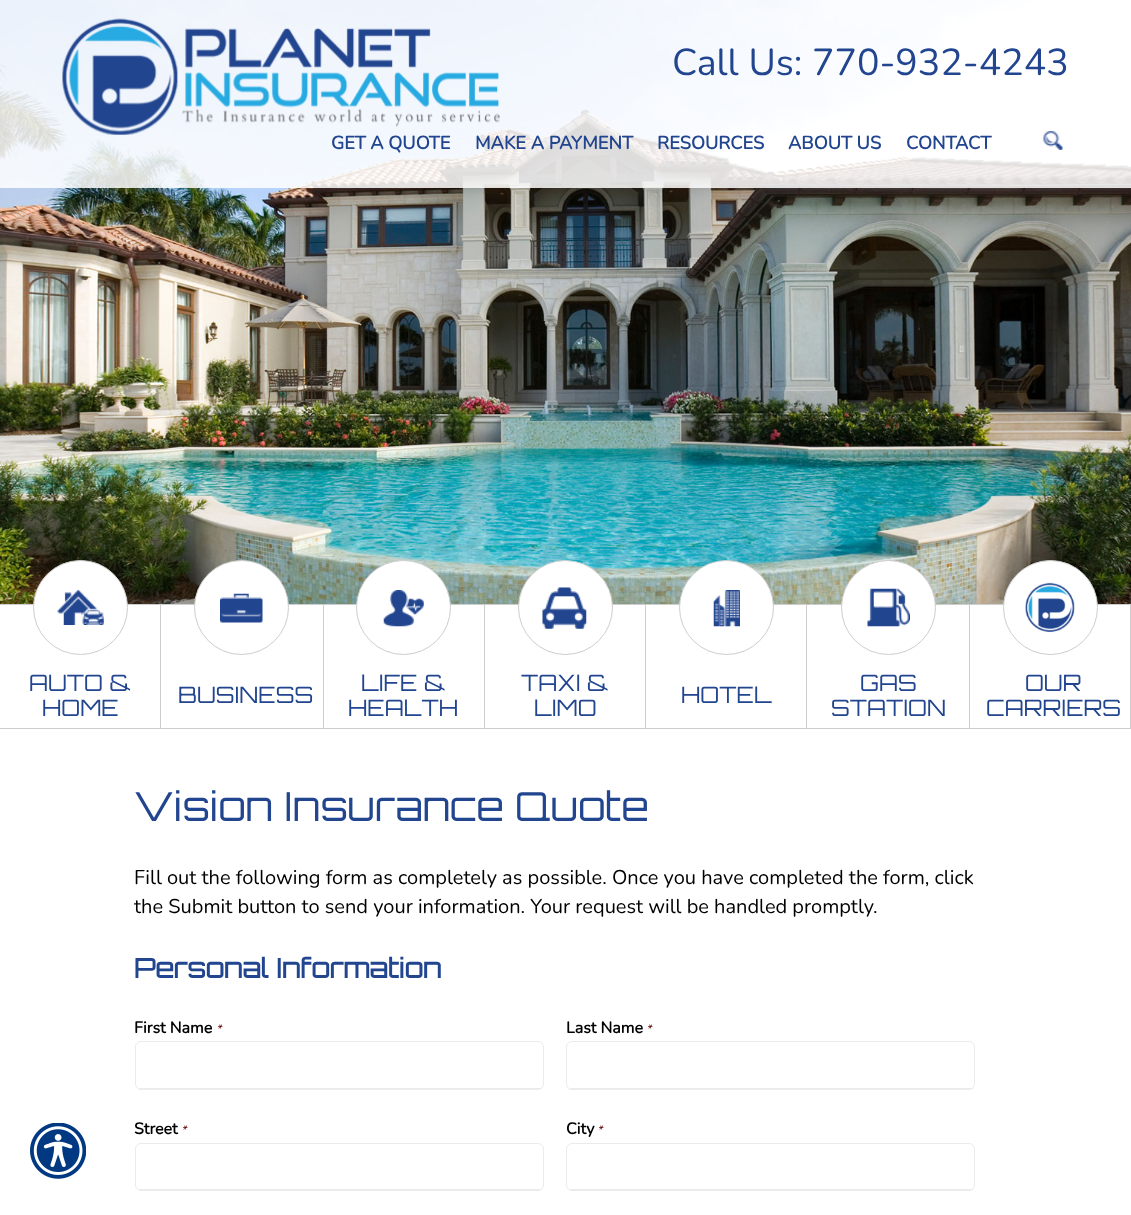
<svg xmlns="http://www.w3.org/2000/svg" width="1131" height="1215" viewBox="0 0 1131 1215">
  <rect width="100%" height="100%" fill="#fff"/>
  <image x="0" y="0" width="1131" height="604" href="img/1.png"/>
  <path d="M0 0h1131v188H0z" fill="#ffffffd9"/>
  <image x="62" y="18" width="438" height="117" href="img/2.png"/>
  <image x="1043" y="131" width="20" height="19" href="img/3.png"/>
  <path d="M0 604h1131v1H0z" fill="#cdcdcd"/>
  <path d="M160 604h1v125H160z" fill="#cdcdcd"/>
  <path d="M0 728h161v1H0z" fill="#cdcdcd"/>
  <circle cx="80.5" cy="607.5" r="47" fill="#fff" stroke="#cdcdcd"/>
  <image x="57" y="590" width="47" height="35" href="img/4.png"/>
  <path d="M323 604h1v125H323z" fill="#cdcdcd"/>
  <path d="M161 728h163v1H161z" fill="#cdcdcd"/>
  <circle cx="241.5" cy="607.5" r="47" fill="#fff" stroke="#cdcdcd"/>
  <image x="220" y="593" width="43" height="30" href="img/5.png"/>
  <path d="M484 604h1v125H484z" fill="#cdcdcd"/>
  <path d="M324 728h161v1H324z" fill="#cdcdcd"/>
  <circle cx="403.5" cy="607.5" r="47" fill="#fff" stroke="#cdcdcd"/>
  <image x="383" y="590" width="41" height="37" href="img/6.png"/>
  <path d="M645 604h1v125H645z" fill="#cdcdcd"/>
  <path d="M485 728h161v1H485z" fill="#cdcdcd"/>
  <circle cx="565.5" cy="607.5" r="47" fill="#fff" stroke="#cdcdcd"/>
  <image x="542" y="587" width="45" height="42" href="img/7.png"/>
  <path d="M806 604h1v125H806z" fill="#cdcdcd"/>
  <path d="M646 728h162v1H646z" fill="#cdcdcd"/>
  <circle cx="726.5" cy="607.5" r="47" fill="#fff" stroke="#cdcdcd"/>
  <image x="713" y="590" width="27" height="37" href="img/8.png"/>
  <path d="M969 604h1v125H969z" fill="#cdcdcd"/>
  <path d="M808 728h162v1H808z" fill="#cdcdcd"/>
  <circle cx="888.5" cy="607.5" r="47" fill="#fff" stroke="#cdcdcd"/>
  <image x="867" y="588" width="43" height="39" href="img/9.png"/>
  <path d="M1130 604h1v125H1130z" fill="#cdcdcd"/>
  <path d="M970 728h161v1H970z" fill="#cdcdcd"/>
  <circle cx="1050.5" cy="607.5" r="47" fill="#fff" stroke="#cdcdcd"/>
  <image x="1025" y="582" width="50" height="51" href="img/10.png"/>
  <rect x="135.5" y="1041.5" width="408" height="48" rx="5.5" fill="none" stroke="#ebebeb"/>
  <path d="M139 1088h402v1H139z" fill="#ebebeb"/>
  <rect x="566.5" y="1041.5" width="408" height="48" rx="5.5" fill="none" stroke="#ebebeb"/>
  <path d="M570 1088h403v1H570z" fill="#ebebeb"/>
  <rect x="135.5" y="1143.5" width="408" height="47" rx="5.5" fill="none" stroke="#ebebeb"/>
  <path d="M139 1189h402v1H139z" fill="#ebebeb"/>
  <rect x="566.5" y="1143.5" width="408" height="47" rx="5.5" fill="none" stroke="#ebebeb"/>
  <path d="M570 1189h403v1H570z" fill="#ebebeb"/>
  <image x="30" y="1123" width="56" height="56" href="img/11.png"/>
  <text x="672" y="75" font-family="Nunito" font-size="37.5" font-weight="200" fill="#22458f">Call Us: 770-932-4243</text>
  <g font-family="Nunito" font-size="18.25" font-weight="bold" fill="#22458f">
    <text x="331" y="149">GET A QUOTE</text>
    <text x="475" y="149">MAKE A PAYMENT</text>
    <text x="657" y="149">RESOURCES</text>
    <text x="788" y="149">ABOUT US</text>
    <text x="906" y="149">CONTACT</text>
  </g>
  <g font-family="Orbitron" font-size="22.75" fill="#22458f">
    <text x="29" y="691">AUTO &amp;</text>
    <text x="42" y="716">HOME</text>
    <text x="178" y="703">BUSINESS</text>
    <text x="361" y="691">LIFE &amp;</text>
    <text x="348" y="716">HEALTH</text>
    <text x="521" y="691">TAXI &amp;</text>
    <text x="534" y="716">LIMO</text>
    <text x="681" y="703">HOTEL</text>
    <text x="860" y="691">GAS</text>
    <text x="831" y="716">STATION</text>
    <text x="1025" y="691">OUR</text>
    <text x="986" y="716">CARRIERS</text>
  </g>
  <text x="134" y="821" font-family="Orbitron" font-size="40" fill="#22458f">Vision Insurance Quote</text>
  <g font-family="Nunito" font-size="20" font-weight="200" fill="#000">
    <text x="134" y="884">Fill out the following form as completely as possible. Once you have completed the form, click</text>
    <text x="134" y="913">the Submit button to send your information. Your request will be handled promptly.</text>
  </g>
  <text x="134" y="978" font-family="Orbitron" font-size="26.75" font-weight="bold" fill="#22458f">Personal Information</text>
  <text x="134" y="1033" font-family="Nunito" font-size="16" font-weight="bold" fill="#000">First Name</text>
  <text x="216" y="1033" font-family="Nunito" font-size="12" font-weight="200" font-style="italic" fill="#600">*</text>
  <text x="566" y="1033" font-family="Nunito" font-size="16" font-weight="bold" fill="#000">Last Name</text>
  <text x="646" y="1033" font-family="Nunito" font-size="12" font-weight="200" font-style="italic" fill="#600">*</text>
  <text x="134" y="1134" font-family="Nunito" font-size="16" font-weight="bold" fill="#000">Street</text>
  <text x="181" y="1134" font-family="Nunito" font-size="12" font-weight="200" font-style="italic" fill="#600">*</text>
  <text x="566" y="1134" font-family="Nunito" font-size="16" font-weight="bold" fill="#000">City</text>
  <text x="597" y="1134" font-family="Nunito" font-size="12" font-weight="200" font-style="italic" fill="#600">*</text>
</svg>
